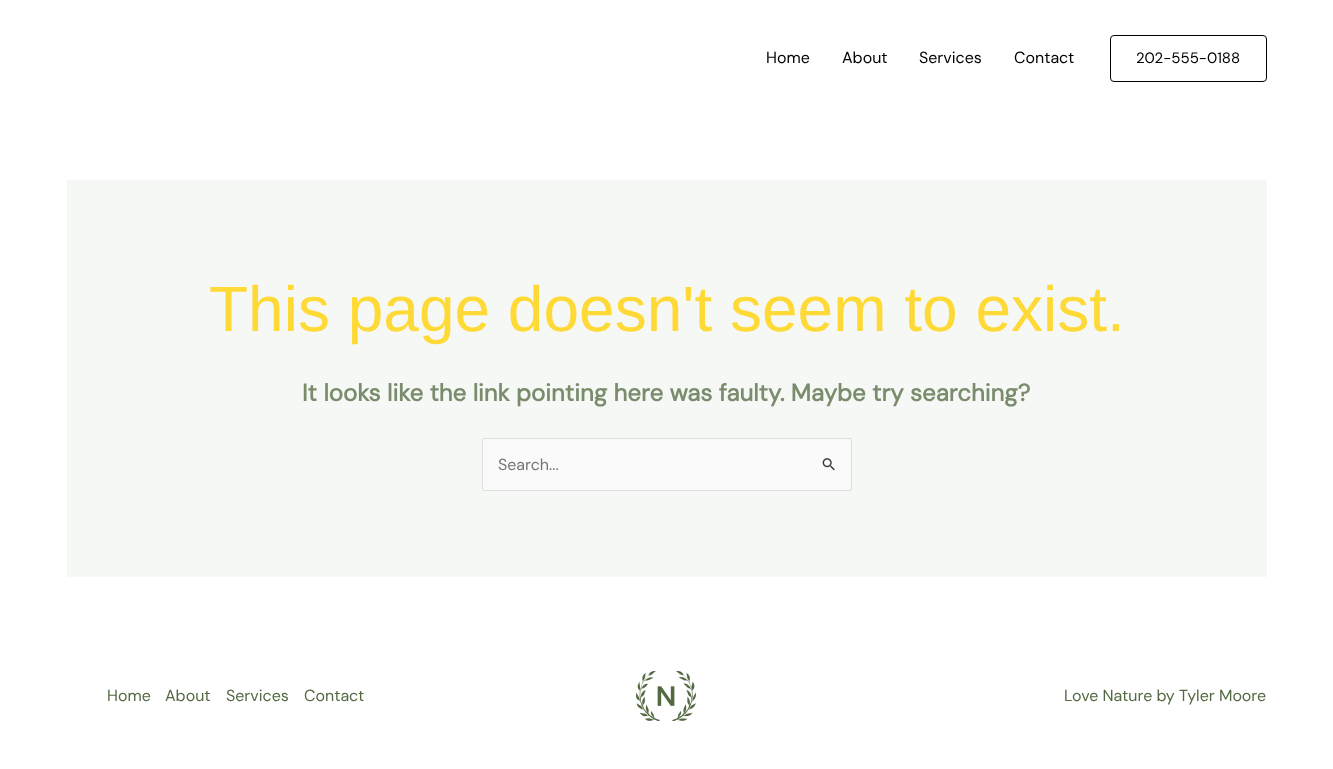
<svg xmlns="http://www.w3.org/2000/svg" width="1333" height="769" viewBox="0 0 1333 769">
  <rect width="100%" height="100%" fill="#fff"/>
  <rect x="1110.5" y="35.5" width="156" height="46" rx="3.5" fill="none" stroke="#000"/>
  <path d="M67 180h1200v397H67z" fill="#f6f8f5"/>
  <rect x="482.5" y="438.5" width="369" height="52" rx="1.5" fill="#fafafa" stroke="#ddd"/>
  <image x="822" y="458" width="13" height="13" href="img/1.png"/>
  <image x="636" y="671" width="60" height="50" href="img/2.png"/>
  <g font-family="DM Sans" font-size="16" fill="#000">
    <text x="766" y="63">Home</text>
    <text x="842" y="63">About</text>
    <text x="919" y="63">Services</text>
    <text x="1014" y="63">Contact</text>
  </g>
  <text x="1136" y="63" font-family="DM Sans" font-size="15" fill="#000">202-555-0188</text>
  <text x="209" y="331" font-family="Liberation Sans" font-size="64" fill="#ffd936">This page doesn't seem to exist.</text>
  <text x="302" y="401" font-family="DM Sans" font-size="24" font-weight="bold" fill="#7b8c6d">It looks like the link pointing here was faulty. Maybe try searching?</text>
  <text x="498" y="470" font-family="DM Sans" font-size="16" fill="#757575">Search...</text>
  <g font-family="DM Sans" font-size="16" fill="#536942">
    <text x="107" y="701">Home</text>
    <text x="165" y="701">About</text>
    <text x="226" y="701">Services</text>
    <text x="304" y="701">Contact</text>
    <text x="1064" y="701">Love Nature by Tyler Moore</text>
  </g>
</svg>
